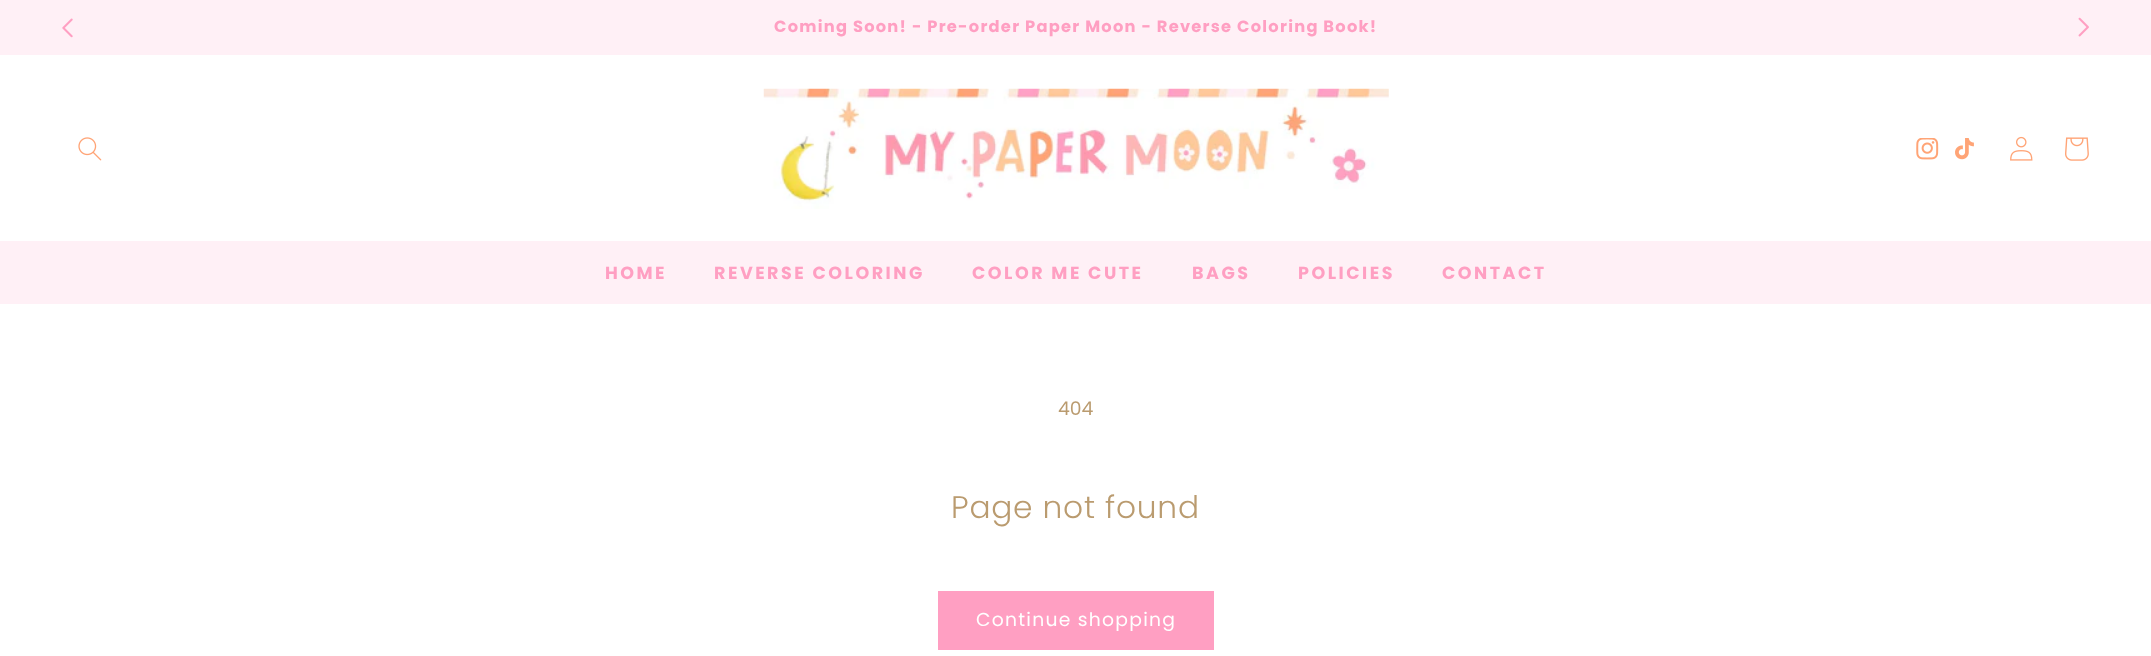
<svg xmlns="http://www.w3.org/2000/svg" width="2151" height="656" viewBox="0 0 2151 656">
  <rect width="100%" height="100%" fill="#fff"/>
  <path d="M0 0h2151v55H0z" fill="#fff0f6"/>
  <image x="62" y="18" width="11" height="20" href="img/1.png"/>
  <image x="2078" y="17" width="11" height="20" href="img/2.png"/>
  <image x="78" y="137" width="24" height="24" href="img/3.png"/>
  <image x="763" y="88" width="626" height="121" href="img/4.png"/>
  <image x="1916" y="138" width="23" height="22" href="img/5.png"/>
  <image x="1955" y="138" width="19" height="22" href="img/6.png"/>
  <image x="2010" y="136" width="23" height="25" href="img/7.png"/>
  <image x="2065" y="137" width="24" height="24" href="img/8.png"/>
  <path d="M0 241h2151v63H0z" fill="#fff0f6"/>
  <path d="M938 591h276v59H938z" fill="#ff9fc2"/>
  <text x="774" y="32" font-family="Poppins" font-size="16.25" font-weight="bold" letter-spacing="1.25" fill="#ff9fc2">Coming Soon! - Pre-order Paper Moon - Reverse Coloring Book!</text>
  <g font-family="Poppins" font-size="17.5" font-weight="bold" letter-spacing="2.5" fill="#ff9fc2">
    <text x="605" y="279">HOME</text>
    <text x="714" y="279">REVERSE COLORING</text>
    <text x="972" y="279">COLOR ME CUTE</text>
    <text x="1192" y="279">BAGS</text>
    <text x="1298" y="279">POLICIES</text>
    <text x="1442" y="279">CONTACT</text>
  </g>
  <text x="1058" y="415" font-family="Poppins" font-size="18.75" fill="#ba9b6f">404</text>
  <text x="951" y="518" font-family="Poppins" font-size="31.25" font-weight="300" letter-spacing="0.75" fill="#ba9b6f">Page not found</text>
  <text x="976" y="626" font-family="Poppins" font-size="18.75" letter-spacing="1.25" fill="#fff">Continue shopping</text>
</svg>
